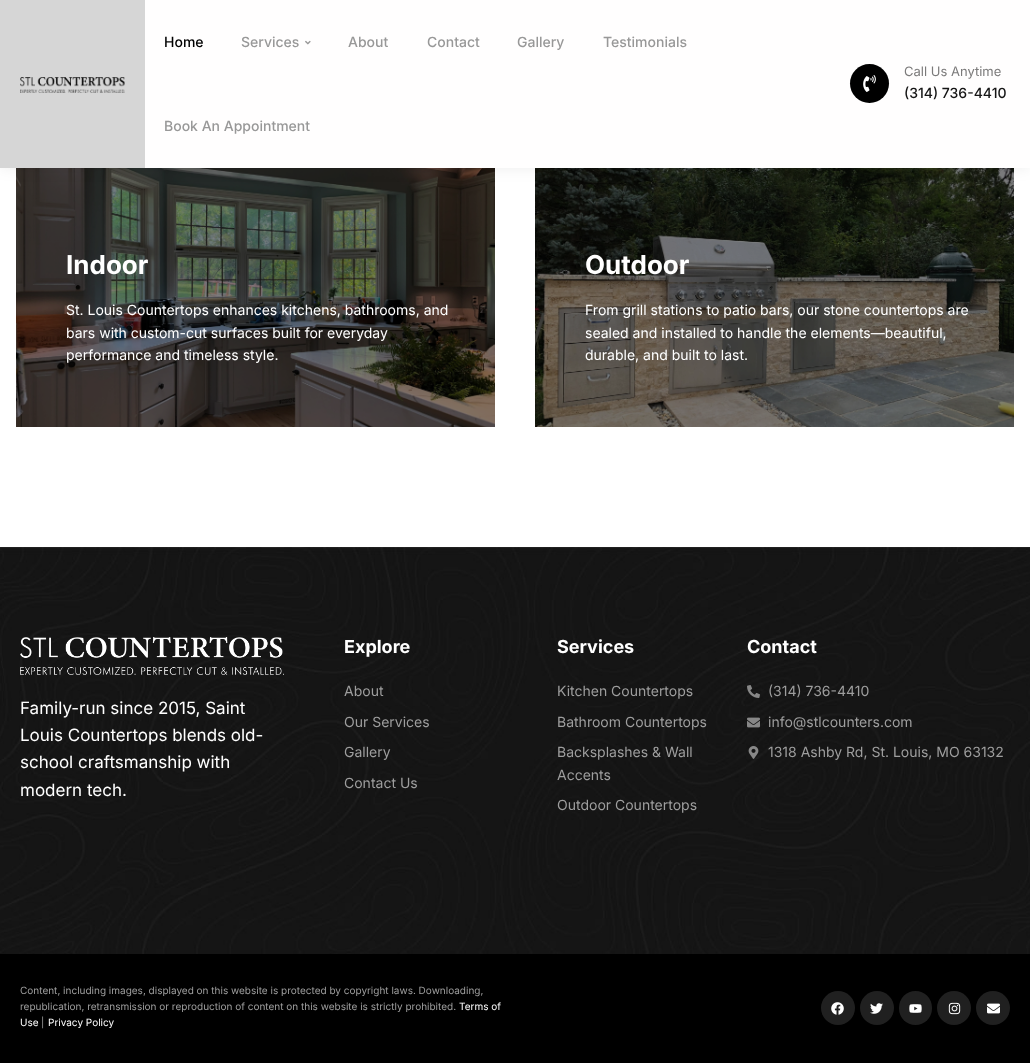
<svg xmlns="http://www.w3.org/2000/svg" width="1030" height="1063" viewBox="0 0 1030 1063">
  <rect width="100%" height="100%" fill="#fff"/>
  <image x="16" y="168" width="479" height="259" href="img/4.png"/>
  <image x="535" y="168" width="479" height="259" href="img/5.png"/>
  <path d="M0 0h1030v168H0z" fill="#00000012" filter="blur(7.5px)"/>
  <path d="M145 0h885v168H145z" fill="#fffefe"/>
  <path d="M0 0h145v168H0z" fill="#d6d6d6"/>
  <image x="20" y="77" width="105" height="16" href="img/1.png"/>
  <image x="305" y="40" width="6" height="5" href="img/2.png"/>
  <circle cx="869.5" cy="83.5" r="19.5" fill="#000"/>
  <image x="863" y="75" width="13" height="17" href="img/3.png"/>
  <image x="0" y="547" width="1030" height="407" href="img/6.png"/>
  <image x="20" y="637" width="264" height="38" href="img/7.png"/>
  <image x="747" y="685" width="13" height="13" href="img/8.png"/>
  <image x="747" y="717" width="13" height="11" href="img/9.png"/>
  <image x="748" y="746" width="11" height="13" href="img/10.png"/>
  <path d="M0 954h1030v109H0z" fill="#000"/>
  <circle cx="838" cy="1008" r="17" fill="#202020"/>
  <image x="831" y="1002" width="13" height="13" href="img/11.png"/>
  <circle cx="877" cy="1008" r="17" fill="#202020"/>
  <image x="870" y="1003" width="13" height="11" href="img/12.png"/>
  <rect x="899" y="991" width="33" height="34" rx="16.5" fill="#202020"/>
  <image x="909" y="1004" width="13" height="9" href="img/13.png"/>
  <circle cx="954" cy="1008" r="17" fill="#202020"/>
  <image x="948" y="1002" width="13" height="13" href="img/14.png"/>
  <circle cx="993" cy="1008" r="17" fill="#202020"/>
  <image x="987" y="1003" width="13" height="11" href="img/15.png"/>
  <text x="164" y="47" font-family="Inter" font-size="14" font-weight="500" fill="#000">Home</text>
  <g font-family="Inter" font-size="14" font-weight="500" fill="#989898">
    <text x="241" y="47">Services</text>
    <text x="348" y="47">About</text>
    <text x="427" y="47">Contact</text>
    <text x="517" y="47">Gallery</text>
    <text x="603" y="47">Testimonials</text>
    <text x="164" y="131">Book An Appointment</text>
  </g>
  <text x="904" y="76" font-family="Inter" font-size="13" fill="#7b7a7a">Call Us Anytime</text>
  <text x="904" y="98" font-family="Inter" font-size="14" font-weight="500" fill="#151515">(314) 736-4410</text>
  <text x="66" y="274" font-family="Inter" font-size="26" font-weight="bold" fill="#fff">Indoor</text>
  <g font-family="Inter" font-size="14" fill="#fff">
    <text x="66" y="315">St. Louis Countertops enhances kitchens, bathrooms, and</text>
    <text x="66" y="338">bars with custom-cut surfaces built for everyday</text>
    <text x="66" y="360">performance and timeless style.</text>
  </g>
  <text x="585" y="274" font-family="Inter" font-size="26" font-weight="bold" fill="#fff">Outdoor</text>
  <g font-family="Inter" font-size="14" fill="#fff">
    <text x="585" y="315">From grill stations to patio bars, our stone countertops are</text>
    <text x="585" y="338">sealed and installed to handle the elements—beautiful,</text>
    <text x="585" y="360">durable, and built to last.</text>
  </g>
  <g font-family="Inter" font-size="17" fill="#fff">
    <text x="20" y="714">Family-run since 2015, Saint</text>
    <text x="20" y="741">Louis Countertops blends old-</text>
    <text x="20" y="768">school craftsmanship with</text>
    <text x="20" y="796">modern tech.</text>
  </g>
  <text x="344" y="653" font-family="Inter" font-size="18" font-weight="bold" fill="#fff">Explore</text>
  <g font-family="Inter" font-size="14" fill="#9e9e9e">
    <text x="344" y="696">About</text>
    <text x="344" y="727">Our Services</text>
    <text x="344" y="757">Gallery</text>
    <text x="344" y="788">Contact Us</text>
  </g>
  <text x="557" y="653" font-family="Inter" font-size="18" font-weight="bold" fill="#fff">Services</text>
  <g font-family="Inter" font-size="14" fill="#9e9e9e">
    <text x="557" y="696">Kitchen Countertops</text>
    <text x="557" y="727">Bathroom Countertops</text>
    <text x="557" y="757">Backsplashes &amp; Wall</text>
    <text x="557" y="780">Accents</text>
    <text x="557" y="810">Outdoor Countertops</text>
  </g>
  <text x="747" y="653" font-family="Inter" font-size="18" font-weight="bold" fill="#fff">Contact</text>
  <g font-family="Inter" font-size="14" fill="#9e9e9e">
    <text x="768" y="696">(314) 736-4410</text>
    <text x="768" y="727">info@stlcounters.com</text>
    <text x="768" y="757">1318 Ashby Rd, St. Louis, MO 63132</text>
  </g>
  <g font-family="Inter" font-size="10" fill="#9e9e9e">
    <text x="20" y="994">Content, including images, displayed on this website is protected by copyright laws. Downloading,</text>
    <text x="20" y="1010">republication, retransmission or reproduction of content on this website is strictly prohibited.</text>
  </g>
  <g font-family="Inter" font-size="10" fill="#fff">
    <text x="459" y="1010">Terms of</text>
    <text x="20" y="1026">Use</text>
  </g>
  <text x="41" y="1026" font-family="Inter" font-size="10" fill="#9e9e9e">|</text>
  <text x="48" y="1026" font-family="Inter" font-size="10" fill="#fff">Privacy Policy</text>
</svg>
